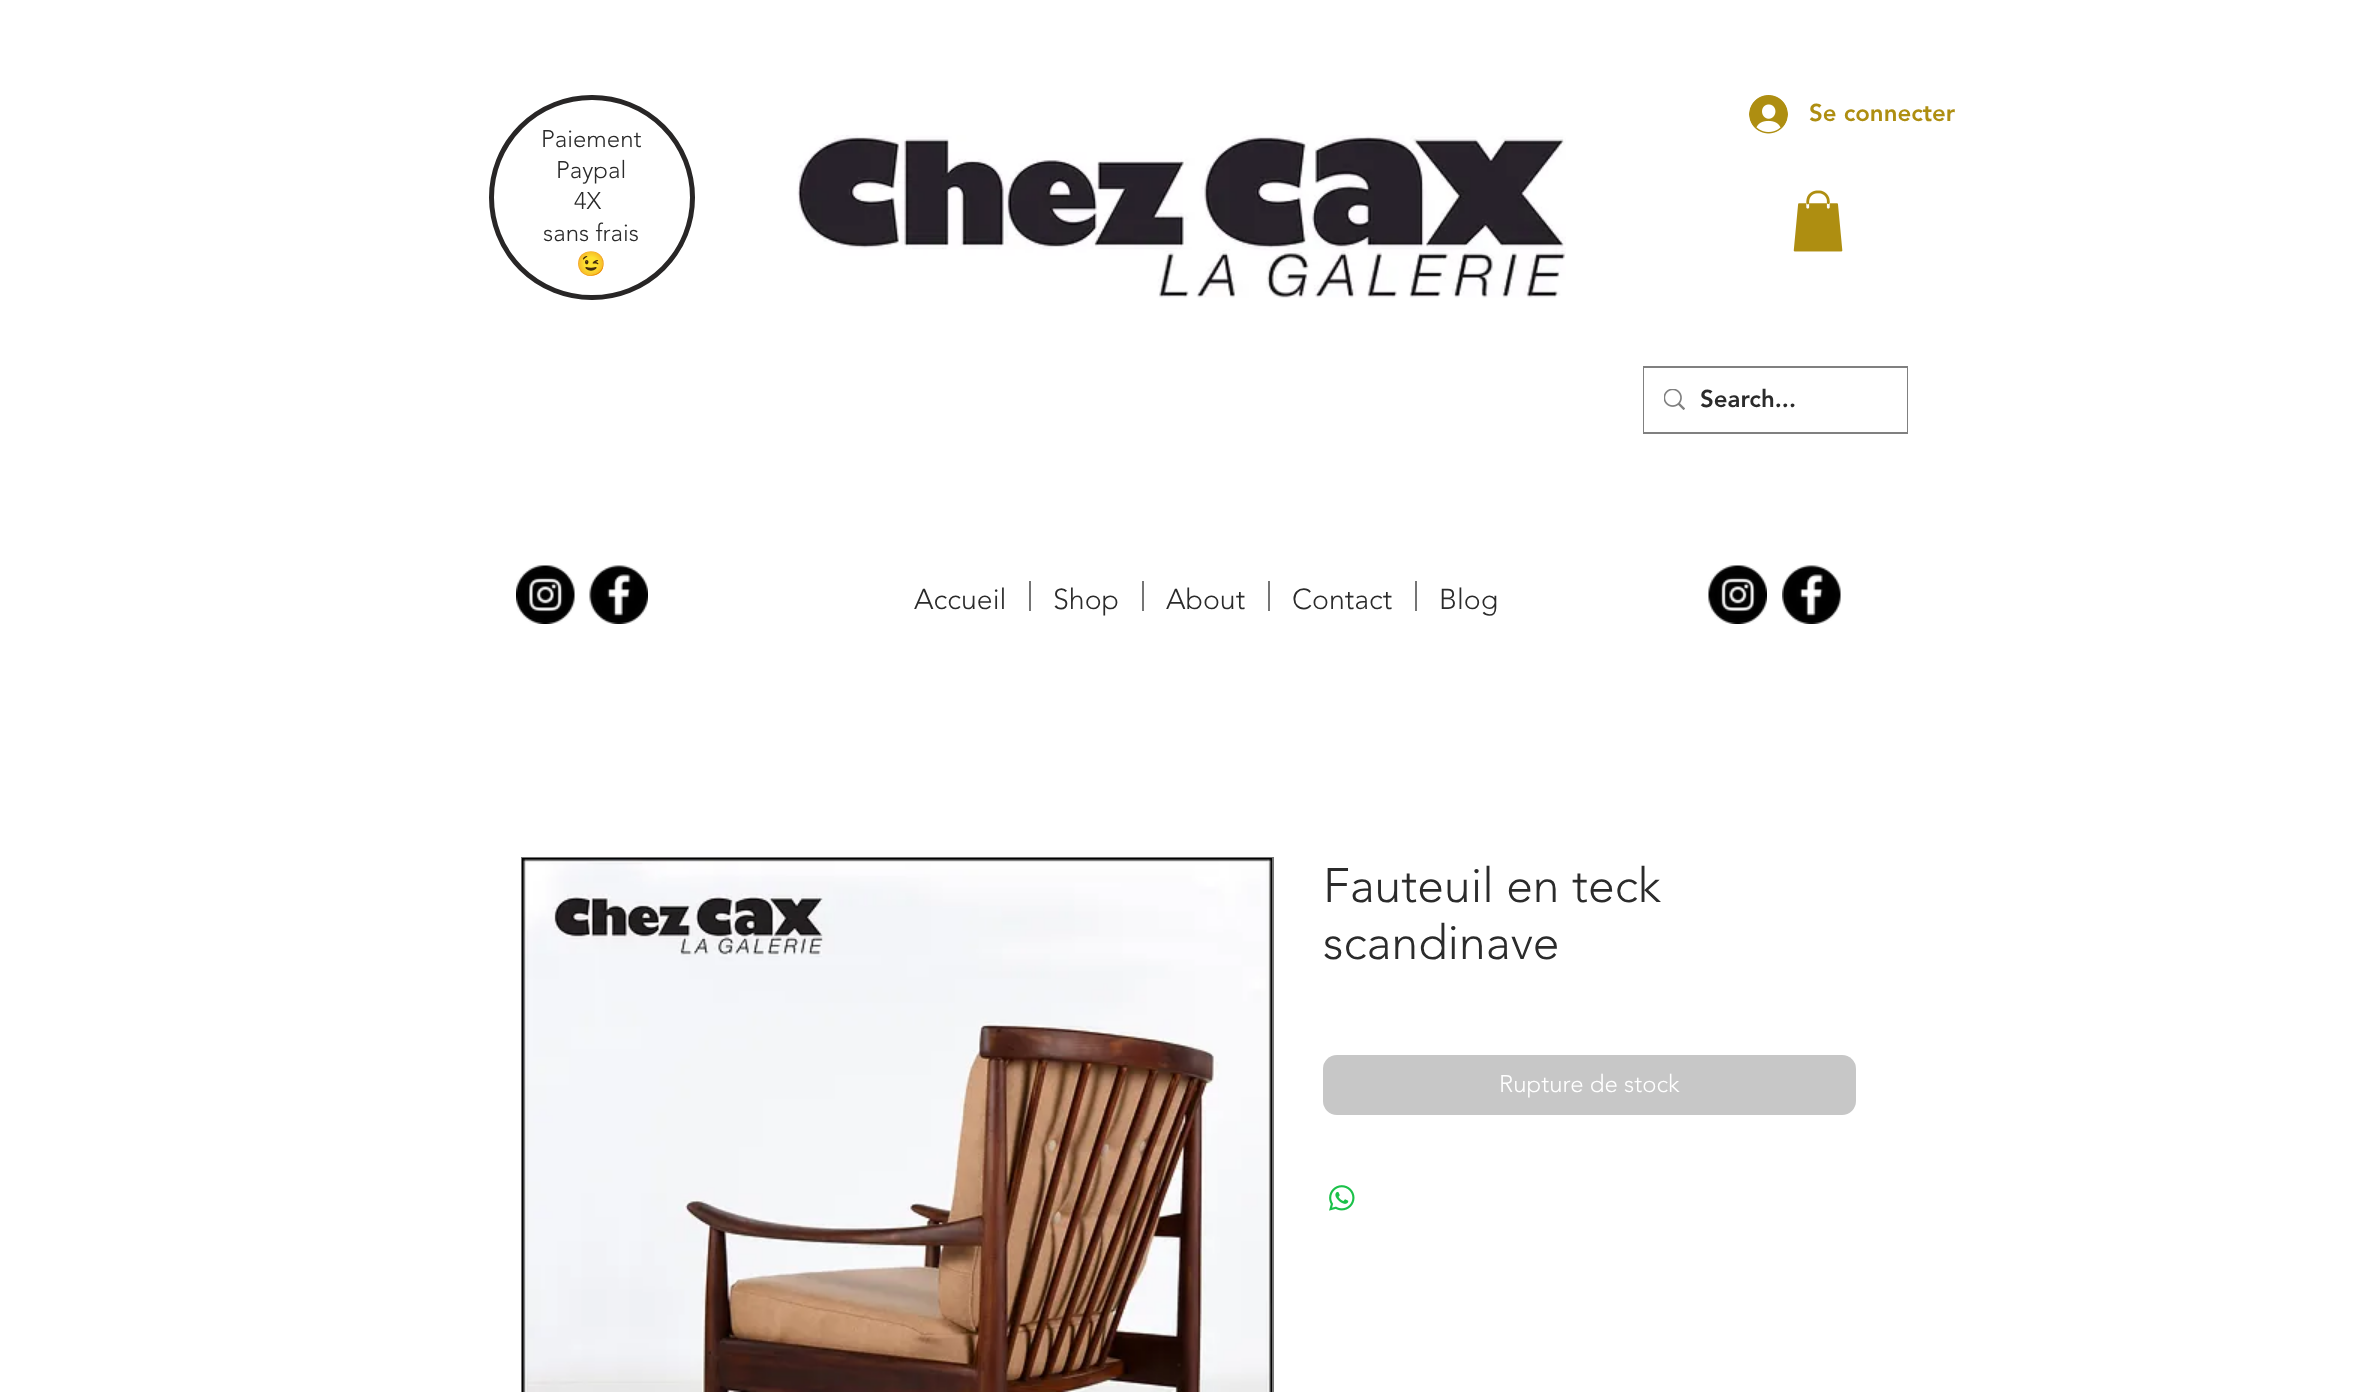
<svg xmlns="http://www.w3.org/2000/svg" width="2376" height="1392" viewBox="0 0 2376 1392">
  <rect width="100%" height="100%" fill="#fff"/>
  <image x="1749" y="95" width="39" height="39" href="img/1.png"/>
  <rect x="491.5" y="97.5" width="201" height="200" rx="100" fill="none" stroke="#282626" stroke-width="5"/>
  <image x="797" y="135" width="769" height="163" href="img/2.png"/>
  <image x="1793" y="190" width="50" height="62" href="img/3.png"/>
  <path d="M1644 367h263v66H1644z" fill="none" stroke="#808080" stroke-width="2"/>
  <path d="M1644 368h263v64H1644z" fill="#fff"/>
  <image x="1664" y="389" width="21" height="21" href="img/4.png"/>
  <image x="516" y="565" width="59" height="59" href="img/5.png"/>
  <image x="589" y="565" width="59" height="59" href="img/6.png"/>
  <path d="M1029 581h2v30H1029z" fill="#757575"/>
  <path d="M1142 581h2v30H1142z" fill="#757575"/>
  <path d="M1268 581h2v30H1268z" fill="#757575"/>
  <path d="M1415 581h2v30H1415z" fill="#757575"/>
  <image x="1708" y="565" width="59" height="59" href="img/7.png"/>
  <image x="1782" y="565" width="59" height="59" href="img/8.png"/>
  <path d="M522 858h751v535H522z" fill="none" stroke="#757575" stroke-width="2"/>
  <image x="522" y="858" width="750" height="534" href="img/9.png"/>
  <rect x="1323" y="1055" width="533" height="60" rx="14" fill="#c7c7c7"/>
  <image x="1329" y="1185" width="26" height="26" href="img/10.png"/>
  <text x="1809" y="121" font-family="'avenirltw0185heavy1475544'" font-size="24" font-weight="900" fill="#ae8e11">Se connecter</text>
  <g font-family="'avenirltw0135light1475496'" font-size="24" font-weight="300" fill="#2b2b2b">
    <text x="541" y="147">Paiement</text>
    <text x="556" y="178">Paypal</text>
    <text x="574" y="209">4X</text>
    <text x="543" y="241">sans frais</text>
  </g>
  <text x="576" y="272" font-family="Noto Color Emoji" font-size="24" fill="#2b2b2b">😉</text>
  <text x="1700" y="407" font-family="'avenirltw0185heavy1475544'" font-size="24" font-weight="900" fill="#2b2b2b">Search...</text>
  <g font-family="'avenirltw0135light1475496'" font-size="28.5" font-weight="300" fill="#2b2b2b">
    <text x="914" y="609">Accueil</text>
    <text x="1053" y="609">Shop</text>
    <text x="1166" y="609">About</text>
    <text x="1292" y="609">Contact</text>
    <text x="1439" y="609">Blog</text>
  </g>
  <g font-family="'avenirltw0135light1475496'" font-size="48" font-weight="300" fill="#2b2b2b">
    <text x="1323" y="902">Fauteuil en teck</text>
    <text x="1323" y="959">scandinave</text>
  </g>
  <text x="1499" y="1092" font-family="'avenirltw0135light1475496'" font-size="24" font-weight="300" fill="#fff">Rupture de stock</text>
</svg>
